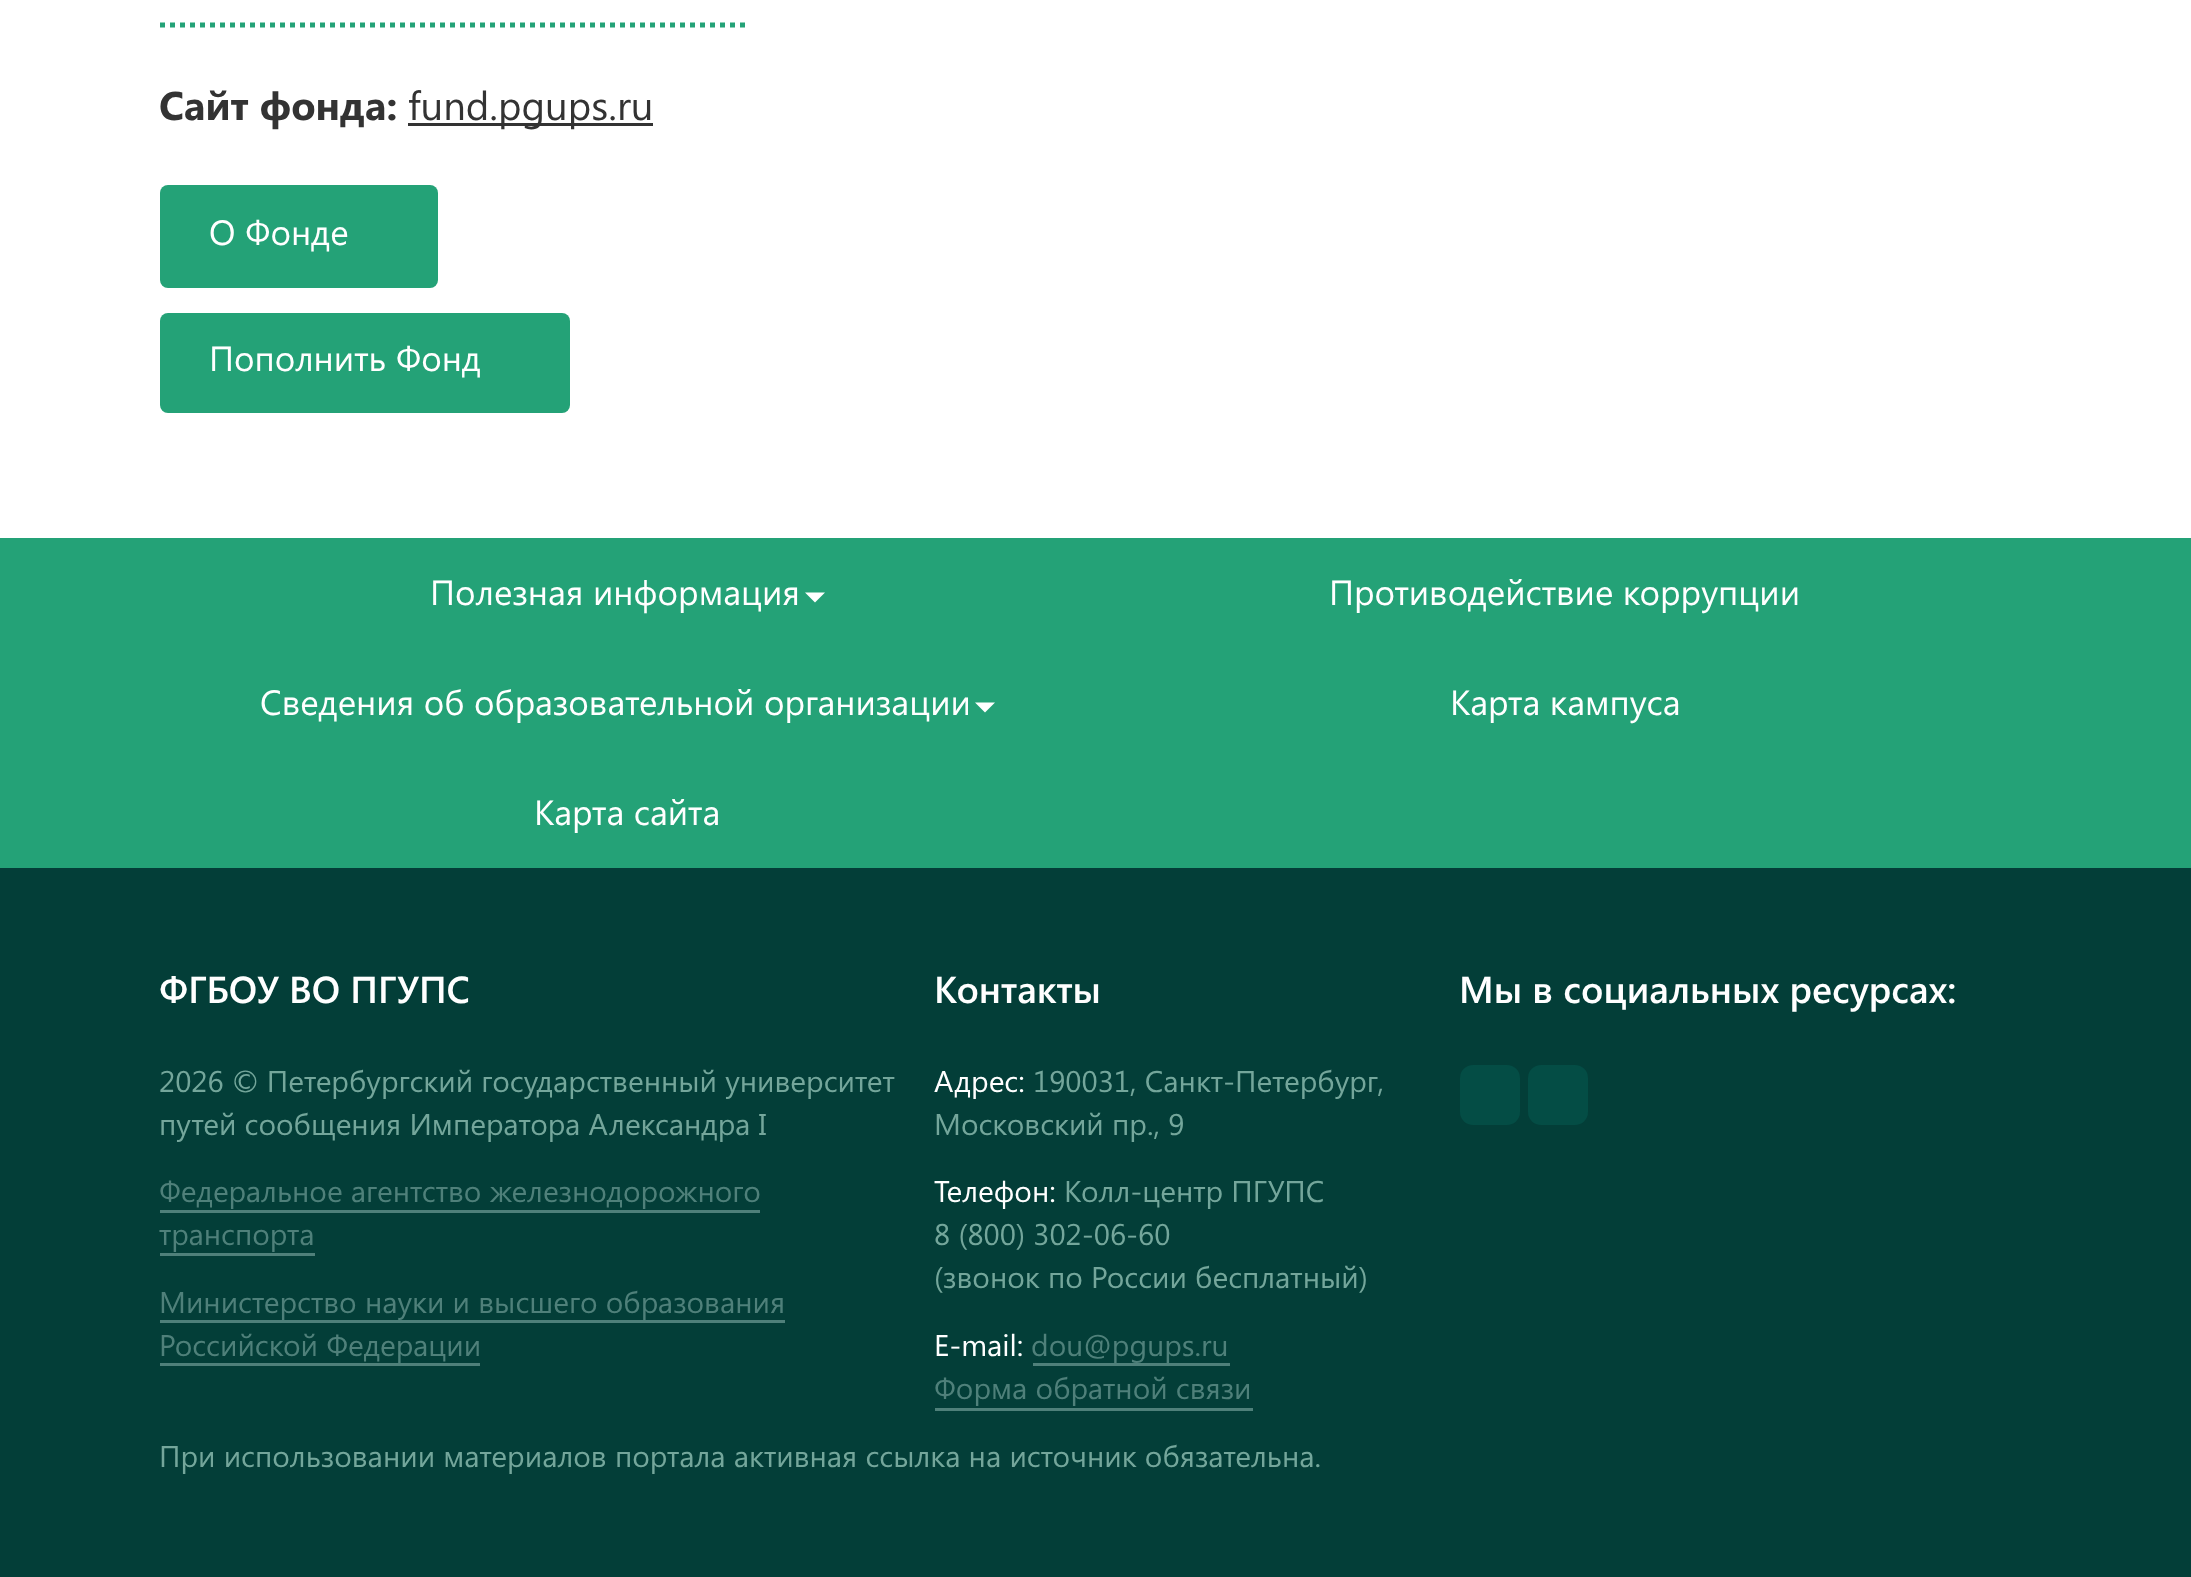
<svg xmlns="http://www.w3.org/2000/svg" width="2191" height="1577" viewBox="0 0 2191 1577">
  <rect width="100%" height="100%" fill="#fff"/>
  <path d="M160 25H745" fill="none" stroke="#24a277" stroke-width="5" stroke-dasharray="5 5"/>
  <path d="M408 123h245v3H408z" fill="#333"/>
  <rect x="160" y="185" width="278" height="103" rx="8" fill="#24a277"/>
  <rect x="160" y="313" width="410" height="100" rx="8" fill="#24a277"/>
  <path d="M0 538h2191v330H0z" fill="#24a277"/>
  <path d="M805 592.5H825L815 602.5Z" fill="#fff"/>
  <path d="M975 702.5H995L985 712.5Z" fill="#fff"/>
  <path d="M0 868h2191v709H0z" fill="#033e38"/>
  <path d="M160 1210h600v3H160z" fill="#4f807a"/>
  <path d="M160 1253h155v3H160z" fill="#4f807a"/>
  <path d="M160 1320h625v3H160z" fill="#4f807a"/>
  <path d="M160 1363h320v3H160z" fill="#4f807a"/>
  <path d="M1033 1363h197v3H1033z" fill="#4f807a"/>
  <path d="M935 1408h318v3H935z" fill="#4f807a"/>
  <rect x="1460" y="1065" width="60" height="60" rx="13" fill="#044d45"/>
  <rect x="1528" y="1065" width="60" height="60" rx="13" fill="#044d45"/>
  <text x="159" y="120" font-family="Segoe UI" font-size="40" font-weight="bold" fill="#333">Сайт фонда:</text>
  <text x="408" y="120" font-family="Segoe UI" font-size="40" fill="#333">fund.pgups.ru</text>
  <g font-family="Segoe UI" font-size="35" fill="#fff">
    <text x="209" y="245">О Фонде</text>
    <text x="209" y="371">Пополнить Фонд</text>
    <text x="430" y="605">Полезная информация</text>
    <text x="1329" y="605">Противодействие коррупции</text>
    <text x="260" y="715">Сведения об образовательной организации</text>
    <text x="1450" y="715">Карта кампуса</text>
    <text x="534" y="825">Карта сайта</text>
  </g>
  <text x="159" y="1003" font-family="Segoe UI" font-size="37.5" font-weight="600" fill="#fff">ФГБОУ ВО ПГУПС</text>
  <g font-family="Segoe UI" font-size="30" fill="#74a69b">
    <text x="159" y="1092">2026 © Петербургский государственный университет</text>
    <text x="159" y="1135">путей сообщения Императора Александра I</text>
  </g>
  <g font-family="Segoe UI" font-size="30" fill="#4f807a">
    <text x="159" y="1202">Федеральное агентство железнодорожного</text>
    <text x="159" y="1245">транспорта</text>
    <text x="159" y="1313">Министерство науки и высшего образования</text>
    <text x="159" y="1356">Российской Федерации</text>
  </g>
  <text x="934" y="1003" font-family="Segoe UI" font-size="37.5" font-weight="600" fill="#fff">Контакты</text>
  <text x="934" y="1092" font-family="Segoe UI" font-size="30" fill="#fff">Адрес:</text>
  <g font-family="Segoe UI" font-size="30" fill="#74a69b">
    <text x="1033" y="1092">190031, Санкт-Петербург,</text>
    <text x="934" y="1135">Московский пр., 9</text>
  </g>
  <text x="934" y="1202" font-family="Segoe UI" font-size="30" fill="#fff">Телефон:</text>
  <g font-family="Segoe UI" font-size="30" fill="#74a69b">
    <text x="1064" y="1202">Колл-центр ПГУПС</text>
    <text x="934" y="1245">8 (800) 302-06-60</text>
    <text x="934" y="1288">(звонок по России бесплатный)</text>
  </g>
  <text x="934" y="1356" font-family="Segoe UI" font-size="30" fill="#fff">E-mail:</text>
  <g font-family="Segoe UI" font-size="30" fill="#4f807a">
    <text x="1031" y="1356">dou@pgups.ru</text>
    <text x="934" y="1399">Форма обратной связи</text>
  </g>
  <text x="1459" y="1003" font-family="Segoe UI" font-size="37.5" font-weight="600" fill="#fff">Мы в социальных ресурсах:</text>
  <text x="159" y="1467" font-family="Segoe UI" font-size="30" fill="#74a69b">При использовании материалов портала активная ссылка на источник обязательна.</text>
</svg>
